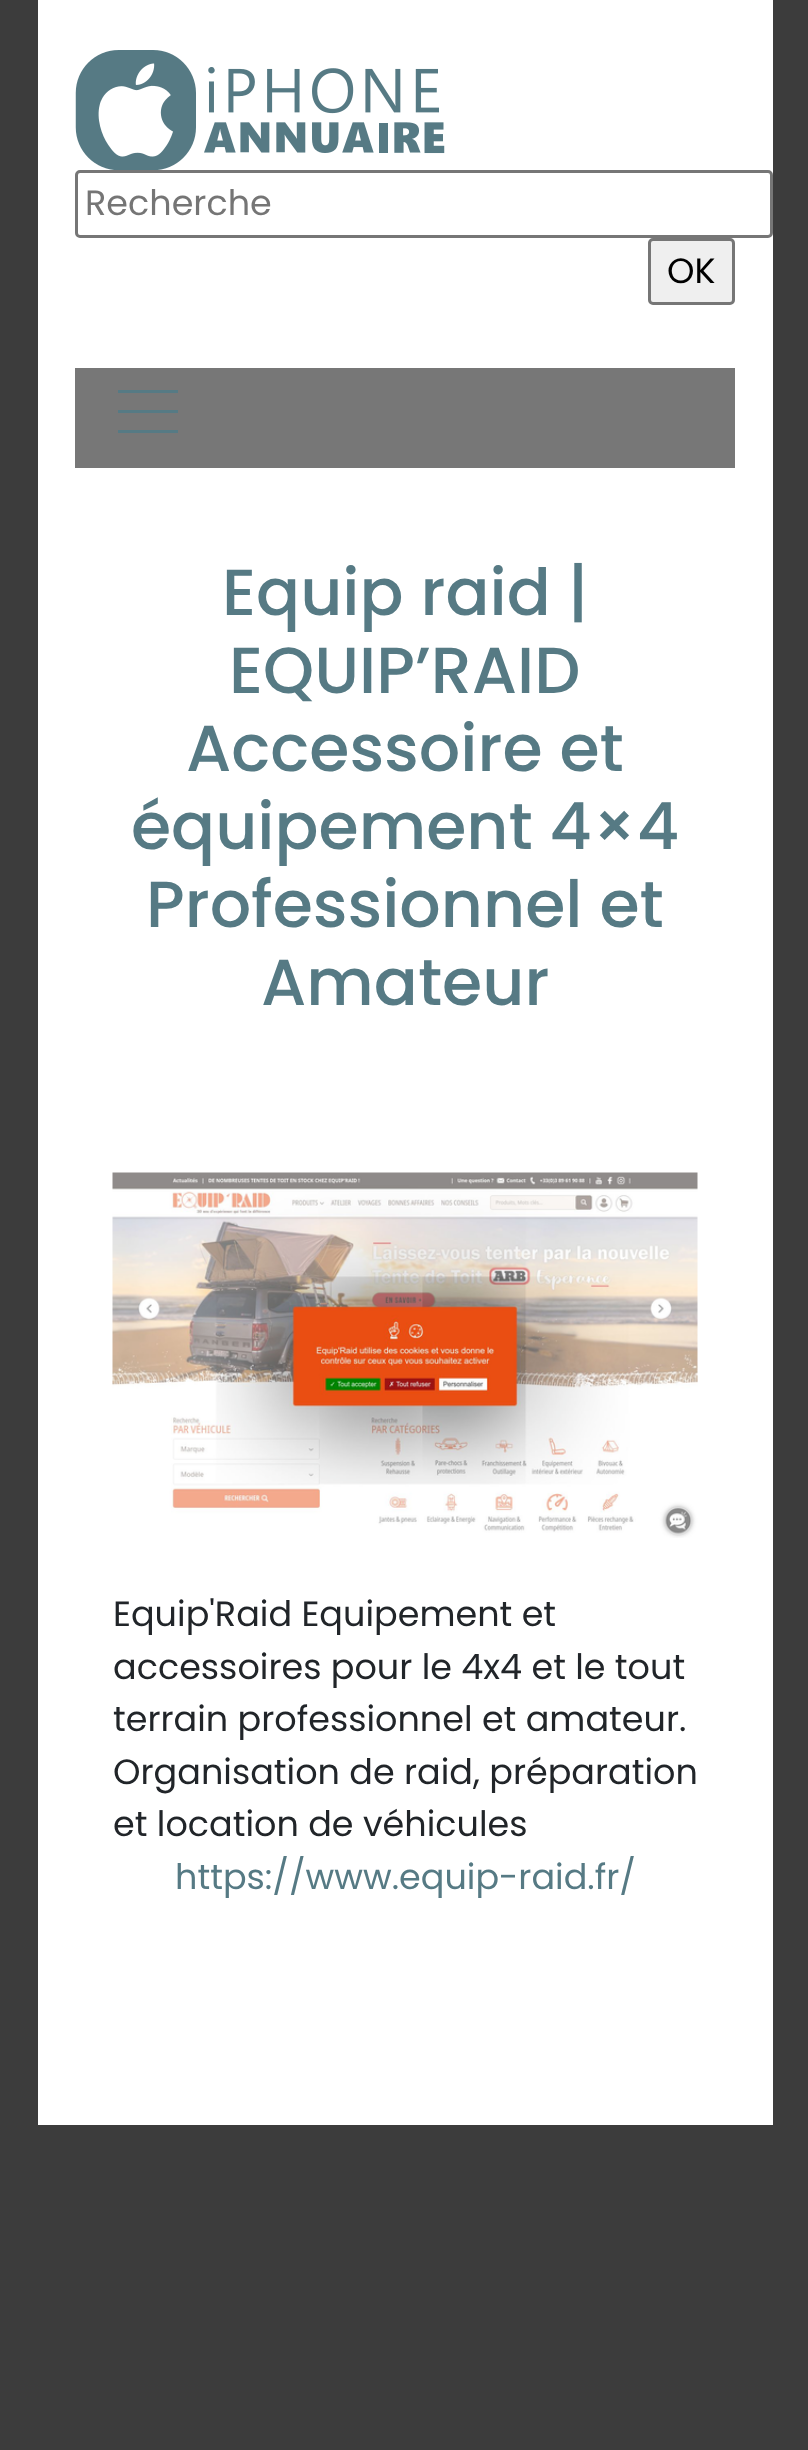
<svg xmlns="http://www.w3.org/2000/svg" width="808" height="2450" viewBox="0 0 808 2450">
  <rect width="100%" height="100%" fill="#3c3c3c"/>
  <path d="M38 0h735v2125H38z" fill="#fff"/>
  <image x="75" y="50" width="370" height="120" href="img/1.png"/>
  <rect x="76.5" y="171.5" width="695" height="65" rx="3.5" fill="none" stroke="#767676" stroke-width="3"/>
  <rect x="649.5" y="239.5" width="84" height="64" rx="3.5" fill="#efefef" stroke="#767676" stroke-width="3"/>
  <path d="M75 368h660v100H75z" fill="#777"/>
  <path d="M118 390h60v3H118z" fill="#567a84"/>
  <path d="M118 410h60v3H118z" fill="#567a84"/>
  <path d="M118 430h60v3H118z" fill="#567a84"/>
  <image x="112" y="1172" width="586" height="366" href="img/2.png"/>
  <text x="85" y="215" font-family="Poppins" font-size="35" fill="#757575">Recherche</text>
  <text x="667" y="283" font-family="Poppins" font-size="35" fill="#000">OK</text>
  <g font-family="Poppins" font-size="65" font-weight="500" fill="#567a84">
    <text x="222" y="615">Equip raid |</text>
    <text x="229" y="693">EQUIP’RAID</text>
    <text x="186" y="771">Accessoire et</text>
    <text x="131" y="849">équipement 4×4</text>
    <text x="146" y="927">Professionnel et</text>
    <text x="261" y="1005">Amateur</text>
  </g>
  <g font-family="Poppins" font-size="35" fill="#212529">
    <text x="113" y="1626">Equip'Raid Equipement et</text>
    <text x="113" y="1679">accessoires pour le 4x4 et le tout</text>
    <text x="113" y="1731">terrain professionnel et amateur.</text>
    <text x="113" y="1784">Organisation de raid, préparation</text>
    <text x="113" y="1836">et location de véhicules</text>
  </g>
  <text x="175" y="1889" font-family="Poppins" font-size="35" fill="#567a84">https://www.equip-raid.fr/</text>
</svg>
